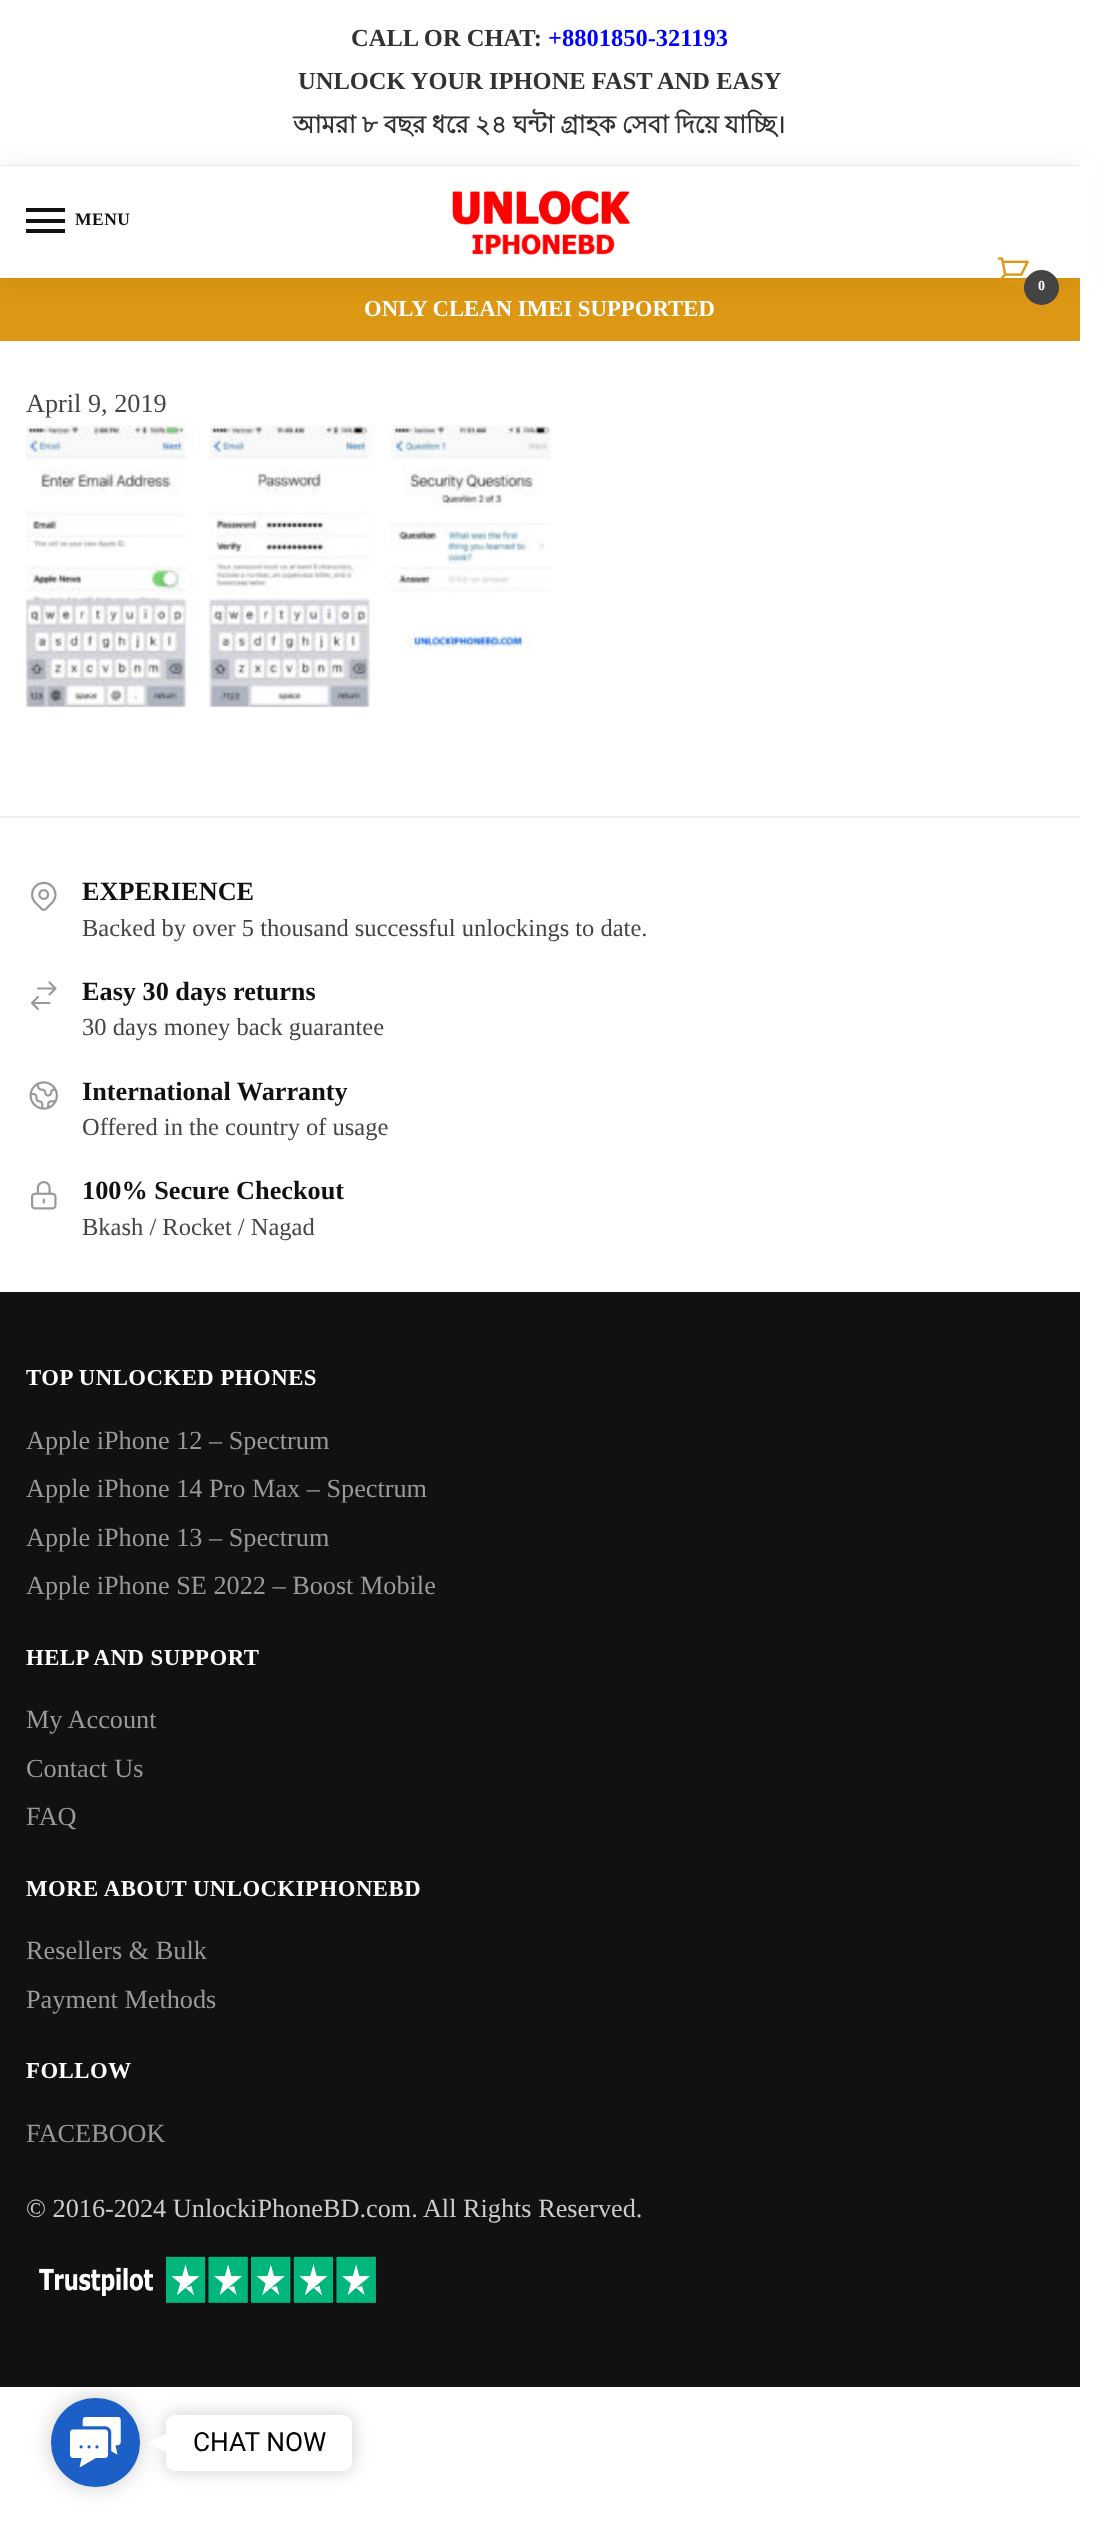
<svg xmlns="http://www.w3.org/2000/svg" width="1105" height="2536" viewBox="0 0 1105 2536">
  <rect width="100%" height="100%" fill="#fff"/>
  <path d="M0 165h1080v1H0z" fill="#eee"/>
  <path d="M0 278h1080v63H0z" fill="#dc9814"/>
  <path d="M0 168h1080v112H0z" fill="#00000014" filter="blur(13px)"/>
  <path d="M0 166h1080v112H0z" fill="#fff"/>
  <path d="M26 208h39v4H26z" fill="#111"/>
  <path d="M26 219h39v4H26z" fill="#111"/>
  <path d="M26 229h39v4H26z" fill="#111"/>
  <image x="452" y="190" width="178" height="65" href="img/1.png"/>
  <image x="997" y="257" width="32" height="31" href="img/2.png"/>
  <circle cx="1041.5" cy="287.5" r="16.5" fill="#444" stroke="#444" stroke-width="2"/>
  <path d="M1080 160h15v128H1080z" fill="#fff"/>
  <image x="26" y="425" width="525" height="282" href="img/3.png"/>
  <path d="M0 816h1080v2H0z" fill="#eee"/>
  <image x="31" y="881" width="26" height="30" href="img/4.png"/>
  <path d="M38 988.5H55.5M55.5 988.5L49.5 982.5M55.5 988.5L49.5 994.5M49.5 1003H32M32 1003L38 1009M32 1003L38 997" fill="none" stroke="#999" stroke-width="2.2" stroke-linecap="round" stroke-linejoin="round"/>
  <image x="29" y="1081" width="29" height="29" href="img/5.png"/>
  <image x="31" y="1181" width="26" height="29" href="img/6.png"/>
  <path d="M0 1292h1080v1095H0z" fill="#111"/>
  <image x="39" y="2256" width="337" height="47" href="img/7.png"/>
  <rect x="51" y="2398" width="89" height="89" rx="44" fill="#00000033" filter="blur(10.5px)"/>
  <rect x="51" y="2398" width="89" height="89" rx="44" fill="#1c5fc6"/>
  <image x="70" y="2417" width="51" height="51" href="img/8.png"/>
  <rect x="166" y="2415" width="186" height="56" rx="9" fill="#00000033" filter="blur(9px)"/>
  <rect x="166" y="2415" width="186" height="56" rx="9" fill="#fff"/>
  <path d="M166 2434V2452L147 2443Z" fill="#fff"/>
  <text x="351" y="46" font-family="Liberation Serif" font-size="24.5" font-weight="bold" fill="#323232">CALL OR CHAT:</text>
  <text x="548" y="46" font-family="Liberation Serif" font-size="24.5" font-weight="bold" fill="#00f">+8801850-321193</text>
  <text x="298" y="89" font-family="Liberation Serif" font-size="24.5" font-weight="bold" fill="#323232">UNLOCK YOUR IPHONE FAST AND EASY</text>
  <text x="293" y="133" word-spacing="-0.75" font-family="Lohit Bengali" font-size="24.5" font-weight="bold" fill="#323232">আমরা ৮ বছর ধরে ২৪ ঘন্টা গ্রাহক সেবা দিয়ে যাচ্ছি।</text>
  <text x="75" y="225" font-family="Liberation Serif" font-size="17.5" font-weight="bold" letter-spacing="0.5" fill="#111">MENU</text>
  <text x="1038" y="290" font-family="Liberation Serif" font-size="14" font-weight="bold" fill="#fff">0</text>
  <text x="364" y="316" font-family="Liberation Serif" font-size="22.75" font-weight="bold" fill="#fff">ONLY CLEAN IMEI SUPPORTED</text>
  <text x="26" y="412" font-family="Liberation Serif" font-size="26.25" fill="#444">April 9, 2019</text>
  <text x="82" y="900" font-family="Liberation Serif" font-size="26.25" font-weight="bold" fill="#111">EXPERIENCE</text>
  <text x="82" y="936" font-family="Liberation Serif" font-size="24.5" fill="#444">Backed by over 5 thousand successful unlockings to date.</text>
  <text x="82" y="1000" font-family="Liberation Serif" font-size="26.25" font-weight="bold" fill="#111">Easy 30 days returns</text>
  <text x="82" y="1035" font-family="Liberation Serif" font-size="24.5" fill="#444">30 days money back guarantee</text>
  <text x="82" y="1100" font-family="Liberation Serif" font-size="26.25" font-weight="bold" fill="#111">International Warranty</text>
  <text x="82" y="1135" font-family="Liberation Serif" font-size="24.5" fill="#444">Offered in the country of usage</text>
  <text x="82" y="1199" font-family="Liberation Serif" font-size="26.25" font-weight="bold" fill="#111">100% Secure Checkout</text>
  <text x="82" y="1235" font-family="Liberation Serif" font-size="24.5" fill="#444">Bkash / Rocket / Nagad</text>
  <text x="26" y="1385" font-family="Liberation Serif" font-size="22.75" font-weight="bold" letter-spacing="0.5" fill="#fff">TOP UNLOCKED PHONES</text>
  <g font-family="Liberation Serif" font-size="26.25" fill="#999">
    <text x="26" y="1449">Apple iPhone 12 – Spectrum</text>
    <text x="26" y="1497">Apple iPhone 14 Pro Max – Spectrum</text>
    <text x="26" y="1546">Apple iPhone 13 – Spectrum</text>
    <text x="26" y="1594">Apple iPhone SE 2022 – Boost Mobile</text>
  </g>
  <text x="26" y="1665" font-family="Liberation Serif" font-size="22.75" font-weight="bold" letter-spacing="0.5" fill="#fff">HELP AND SUPPORT</text>
  <g font-family="Liberation Serif" font-size="26.25" fill="#999">
    <text x="26" y="1728">My Account</text>
    <text x="26" y="1777">Contact Us</text>
    <text x="26" y="1825">FAQ</text>
  </g>
  <text x="26" y="1896" font-family="Liberation Serif" font-size="22.75" font-weight="bold" letter-spacing="0.5" fill="#fff">MORE ABOUT UNLOCKIPHONEBD</text>
  <g font-family="Liberation Serif" font-size="26.25" fill="#999">
    <text x="26" y="1959">Resellers &amp; Bulk</text>
    <text x="26" y="2008">Payment Methods</text>
  </g>
  <text x="26" y="2078" font-family="Liberation Serif" font-size="22.75" font-weight="bold" letter-spacing="0.5" fill="#fff">FOLLOW</text>
  <text x="26" y="2142" font-family="Liberation Serif" font-size="26.25" fill="#999">FACEBOOK</text>
  <text x="26" y="2217" font-family="Liberation Serif" font-size="26.25" fill="#ccc">© 2016-2024 UnlockiPhoneBD.com. All Rights Reserved.</text>
  <text x="193" y="2451" font-family="Roboto" font-size="26.25" fill="#000">CHAT NOW</text>
</svg>
